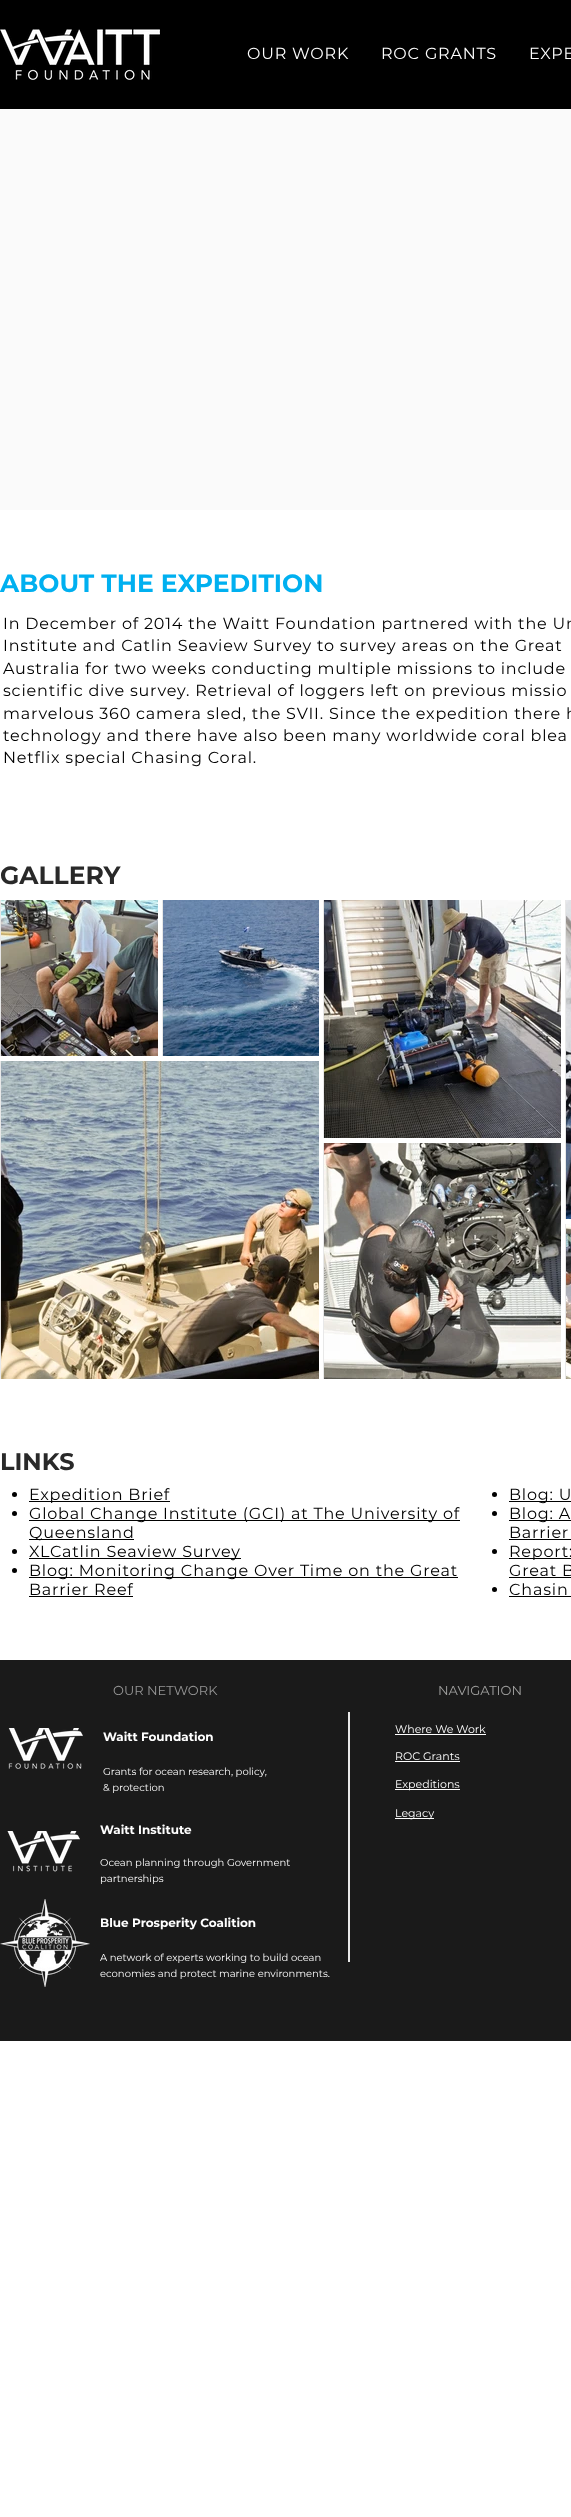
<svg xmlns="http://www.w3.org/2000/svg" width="571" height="2517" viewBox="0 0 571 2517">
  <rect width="100%" height="100%" fill="#fff"/>
  <path d="M0 0h571v109H0z" fill="#000"/>
  <image x="0" y="29" width="160" height="51" href="img/1.png"/>
  <path d="M0 109h571v401H0z" fill="#fafafa"/>
  <path d="M0 900h1v156H0z" fill="#e8e8e8"/>
  <image x="1" y="900" width="157" height="156" href="img/2.png"/>
  <path d="M162 900h1v156H162z" fill="#e8e8e8"/>
  <image x="163" y="900" width="156" height="156" href="img/3.png"/>
  <path d="M0 1061h1v318H0z" fill="#e8e8e8"/>
  <image x="1" y="1061" width="318" height="318" href="img/4.png"/>
  <path d="M323 900h1v238H323z" fill="#e8e8e8"/>
  <image x="324" y="900" width="237" height="238" href="img/5.png"/>
  <path d="M323 1143h1v236H323z" fill="#e8e8e8"/>
  <image x="324" y="1143" width="237" height="236" href="img/6.png"/>
  <path d="M565 900h1v319H565z" fill="#e8e8e8"/>
  <image x="566" y="900" width="5" height="319" href="img/7.png"/>
  <path d="M565 1224h1v155H565z" fill="#e8e8e8"/>
  <image x="566" y="1224" width="5" height="155" href="img/8.png"/>
  <circle cx="14.5" cy="1494.5" r="2.5" fill="#000"/>
  <path d="M29 1501h141v1H29z" fill="#000"/>
  <circle cx="14.5" cy="1513.5" r="2.5" fill="#000"/>
  <path d="M29 1520h431v1H29z" fill="#000"/>
  <path d="M29 1539h105v1H29z" fill="#000"/>
  <circle cx="14.5" cy="1551.5" r="2.5" fill="#000"/>
  <path d="M29 1558h212v1H29z" fill="#000"/>
  <circle cx="14.5" cy="1570.5" r="2.5" fill="#000"/>
  <path d="M29 1577h429v1H29z" fill="#000"/>
  <path d="M29 1596h104v1H29z" fill="#000"/>
  <circle cx="494.5" cy="1494.5" r="2.5" fill="#000"/>
  <path d="M509 1501h62v1H509z" fill="#000"/>
  <circle cx="494.5" cy="1513.5" r="2.5" fill="#000"/>
  <path d="M509 1520h62v1H509z" fill="#000"/>
  <path d="M509 1539h62v1H509z" fill="#000"/>
  <circle cx="494.5" cy="1551.5" r="2.5" fill="#000"/>
  <path d="M509 1558h62v1H509z" fill="#000"/>
  <path d="M509 1577h62v1H509z" fill="#000"/>
  <circle cx="494.5" cy="1589.5" r="2.5" fill="#000"/>
  <path d="M509 1596h62v1H509z" fill="#000"/>
  <path d="M0 1660h571v381H0z" fill="#1a1a1a"/>
  <image x="8" y="1728" width="75" height="41" href="img/9.png"/>
  <path d="M348 1712h2v250H348z" fill="#e8e8e8"/>
  <path d="M395 1734h91v1H395z" fill="#fff"/>
  <path d="M395 1761h65v1H395z" fill="#fff"/>
  <path d="M395 1789h65v1H395z" fill="#fff"/>
  <path d="M395 1818h39v1H395z" fill="#fff"/>
  <image x="7" y="1831" width="73" height="41" href="img/10.png"/>
  <image x="0" y="1899" width="90" height="88" href="img/11.png"/>
  <g font-family="Montserrat" font-size="16" letter-spacing="0.8" fill="#fff">
    <text x="247" y="59">OUR WORK</text>
    <text x="381" y="59">ROC GRANTS</text>
    <text x="529" y="59">EXPE</text>
  </g>
  <text x="0" y="592" font-family="Montserrat" font-size="25" font-weight="bold" fill="#00b0f0">ABOUT THE EXPEDITION</text>
  <g font-family="Montserrat" font-size="16" letter-spacing="0.8" fill="#000">
    <text x="3" y="629">In December of 2014 the Waitt Foundation partnered with the Un</text>
    <text x="3" y="651">Institute and Catlin Seaview Survey to survey areas on the Great</text>
    <text x="3" y="674">Australia for two weeks conducting multiple missions to include</text>
    <text x="3" y="696">scientific dive survey. Retrieval of loggers left on previous missio</text>
    <text x="3" y="719">marvelous 360 camera sled, the SVII. Since the expedition there h</text>
    <text x="3" y="741">technology and there have also been many worldwide coral blea</text>
    <text x="3" y="763">Netflix special Chasing Coral.</text>
  </g>
  <text x="0" y="884" font-family="Montserrat" font-size="25" font-weight="bold" fill="#292929">GALLERY</text>
  <text x="0" y="1470" font-family="Montserrat" font-size="24" font-weight="bold" fill="#292929">LINKS</text>
  <g font-family="Montserrat" font-size="16" letter-spacing="0.8" fill="#000">
    <text x="29" y="1500">Expedition Brief</text>
    <text x="29" y="1519">Global Change Institute (GCI) at The University of</text>
    <text x="29" y="1538">Queensland</text>
    <text x="29" y="1557">XLCatlin Seaview Survey</text>
    <text x="29" y="1576">Blog: Monitoring Change Over Time on the Great</text>
    <text x="29" y="1595">Barrier Reef</text>
    <text x="509" y="1500">Blog: U</text>
    <text x="509" y="1519">Blog: A</text>
    <text x="509" y="1538">Barrier</text>
    <text x="509" y="1557">Report:</text>
    <text x="509" y="1576">Great B</text>
    <text x="509" y="1595">Chasin</text>
  </g>
  <text x="113" y="1695" font-family="Montserrat" font-size="13" fill="#969696">OUR NETWORK</text>
  <text x="438" y="1695" font-family="Montserrat" font-size="13" fill="#a0a09f">NAVIGATION</text>
  <text x="103" y="1741" font-family="Montserrat" font-size="12" font-weight="bold" fill="#fff">Waitt Foundation</text>
  <g font-family="Montserrat" font-size="10" fill="#fff">
    <text x="103" y="1775">Grants for ocean research, policy,</text>
    <text x="103" y="1791">&amp; protection</text>
  </g>
  <g font-family="Montserrat" font-size="11" fill="#fff">
    <text x="395" y="1733">Where We Work</text>
    <text x="395" y="1760">ROC Grants</text>
    <text x="395" y="1788">Expeditions</text>
    <text x="395" y="1817">Legacy</text>
  </g>
  <text x="100" y="1834" font-family="Montserrat" font-size="12" font-weight="bold" fill="#fff">Waitt Institute</text>
  <g font-family="Montserrat" font-size="10" fill="#fff">
    <text x="100" y="1866">Ocean planning through Government</text>
    <text x="100" y="1882">partnerships</text>
  </g>
  <text x="100" y="1927" font-family="Montserrat" font-size="12" font-weight="bold" fill="#fff">Blue Prosperity Coalition</text>
  <g font-family="Montserrat" font-size="10" fill="#fff">
    <text x="100" y="1961">A network of experts working to build ocean</text>
    <text x="100" y="1977">economies and protect marine environments.</text>
  </g>
</svg>
